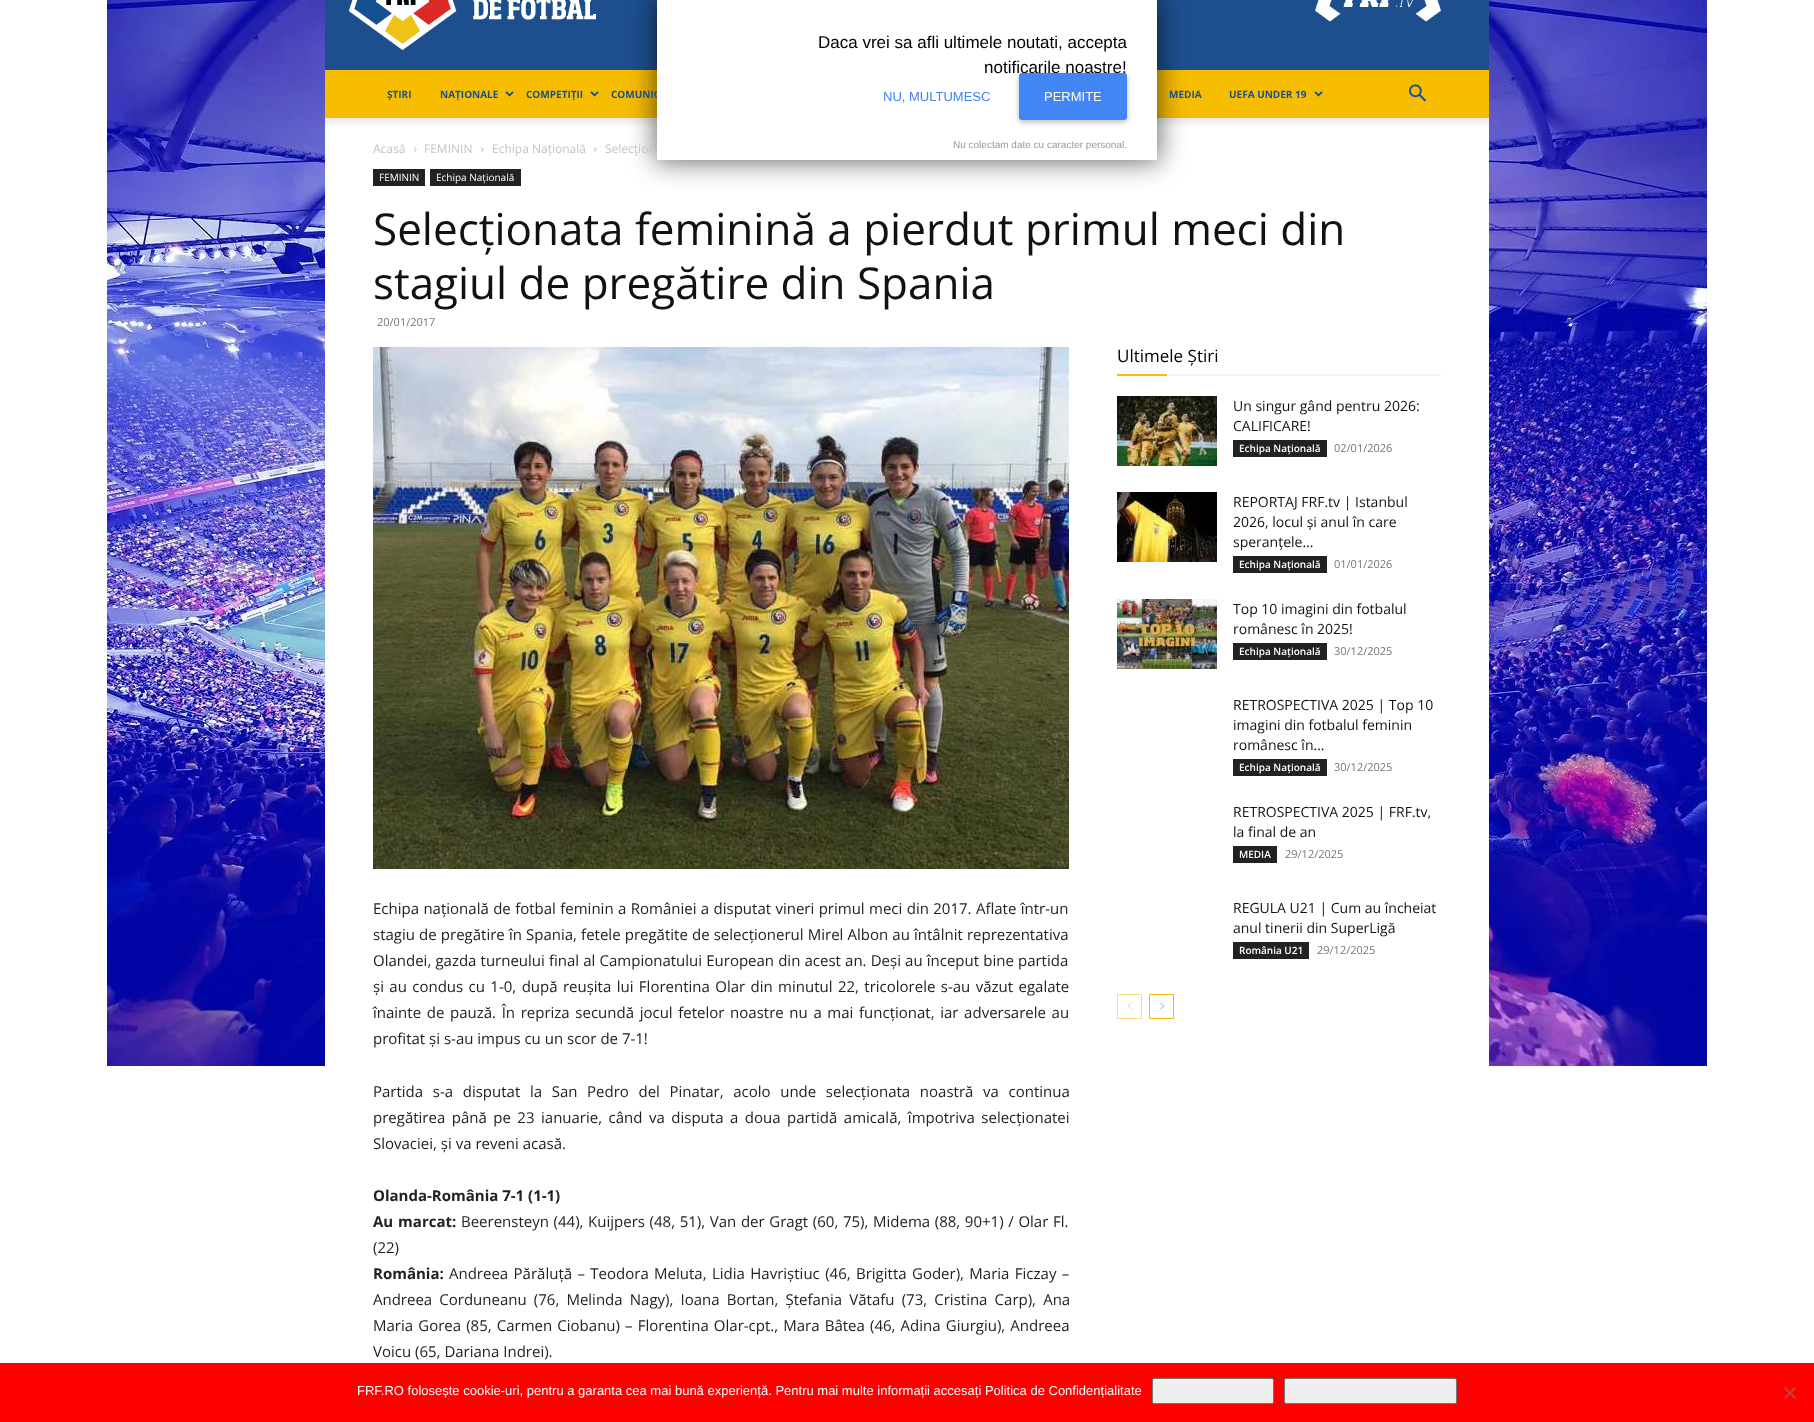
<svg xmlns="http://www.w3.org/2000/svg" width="1814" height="1422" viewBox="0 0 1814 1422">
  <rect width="100%" height="100%" fill="#fff"/>
  <image x="107" y="0" width="1600" height="1066" href="img/1.png"/>
  <path d="M325 0h1164v70H325z" fill="#1d4f8f"/>
  <path d="M325 70h1164v48H325z" fill="#f7bd00"/>
  <path d="M325 118h1164v948H325z" fill="#fff"/>
  <image x="325" y="118" width="1164" height="9" href="img/6.png"/>
  <path d="M655 -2h504v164H655z" fill="#00000094" filter="blur(13.5px)"/>
  <image x="349" y="0" width="247" height="50" href="img/2.png"/>
  <image x="1315" y="0" width="126" height="22" href="img/3.png"/>
  <image x="505" y="91" width="9" height="6" href="img/4.png"/>
  <image x="590" y="91" width="9" height="6" href="img/4.png"/>
  <image x="1314" y="91" width="9" height="6" href="img/4.png"/>
  <image x="1409" y="84" width="17" height="18" href="img/5.png"/>
  <image x="414" y="147" width="3" height="5" href="img/7.png"/>
  <image x="481" y="147" width="3" height="5" href="img/7.png"/>
  <image x="594" y="147" width="3" height="5" href="img/7.png"/>
  <path d="M373 169h52v17H373z" fill="#222"/>
  <path d="M430 169h91v17H430z" fill="#222"/>
  <path d="M1117 374h50v2H1117z" fill="#f7bd00"/>
  <path d="M1167 374h274v2H1167z" fill="#f5f5f5"/>
  <image x="1117" y="396" width="100" height="70" href="img/8.png"/>
  <path d="M1233 440h94v17H1233z" fill="#222"/>
  <image x="1117" y="492" width="100" height="70" href="img/9.png"/>
  <path d="M1233 556h94v17H1233z" fill="#222"/>
  <image x="1117" y="599" width="100" height="70" href="img/10.png"/>
  <path d="M1233 643h94v17H1233z" fill="#222"/>
  <path d="M1233 759h94v17H1233z" fill="#222"/>
  <path d="M1233 846h44v17H1233z" fill="#222"/>
  <path d="M1233 942h76v17H1233z" fill="#222"/>
  <path d="M1117.5 994.5h24v24H1117.5z" fill="none" stroke="#fbde80"/>
  <image x="1127" y="1002" width="5" height="8" href="img/11.png"/>
  <path d="M1149.5 994.5h24v24H1149.5z" fill="none" stroke="#f7bd00"/>
  <image x="1160" y="1002" width="5" height="8" href="img/12.png"/>
  <image x="373" y="347" width="696" height="522" href="img/13.png"/>
  <path d="M0 1363h1814v59H0z" fill="#f00"/>
  <rect x="1152.5" y="1378.5" width="121" height="25" rx="1.5" fill="#efefef" stroke="#767676"/>
  <rect x="1284.5" y="1378.5" width="172" height="25" rx="1.5" fill="#efefef" stroke="#767676"/>
  <path d="M1794.5 1387L1796 1388.5L1785.5 1399L1784 1397.5Z" fill="#c04040"/>
  <path d="M1784 1388.5L1785.5 1387L1796 1397.5L1794.5 1399Z" fill="#c04040"/>
  <g font-family="Open Sans" font-size="10" font-weight="bold" fill="#1d4f8f">
    <text x="387" y="98">ȘTIRI</text>
    <text x="440" y="98">NAȚIONALE</text>
    <text x="526" y="98">COMPETIȚII</text>
    <text x="611" y="98">COMUNIC</text>
  </g>
  <path d="M657 0h500v160H657z" fill="#fff"/>
  <text x="953" y="148" font-family="Liberation Sans" font-size="10" fill="#999">Nu colectam date cu caracter personal.</text>
  <rect x="1019" y="75" width="108" height="47" rx="3" fill="#00000029" filter="blur(2.5px)"/>
  <rect x="1019" y="75" width="108" height="47" rx="3" fill="#0000001f" filter="blur(3px)"/>
  <text x="984" y="73" font-family="Liberation Sans" font-size="17" fill="#000">notificarile noastre!</text>
  <rect x="1019" y="73" width="108" height="47" rx="3" fill="#4285f4"/>
  <text x="1044" y="101" font-family="Liberation Sans" font-size="13" fill="#fff">PERMITE</text>
  <text x="883" y="101" font-family="Liberation Sans" font-size="13" fill="#4285f4">NU, MULTUMESC</text>
  <text x="818" y="48" font-family="Liberation Sans" font-size="17" fill="#000">Daca vrei sa afli ultimele noutati, accepta</text>
  <g font-family="Open Sans" font-size="10" font-weight="bold" fill="#1d4f8f">
    <text x="1169" y="98">MEDIA</text>
    <text x="1229" y="98">UEFA UNDER 19</text>
  </g>
  <g font-family="Open Sans" font-size="12" fill="#c3c3c3">
    <text x="373" y="153">Acasă</text>
    <text x="424" y="153">FEMININ</text>
    <text x="492" y="153">Echipa Națională</text>
    <text x="605" y="153">Selecțion</text>
  </g>
  <g font-family="Open Sans" font-size="10" fill="#fff">
    <text x="379" y="181">FEMININ</text>
    <text x="436" y="181">Echipa Națională</text>
  </g>
  <g font-family="Open Sans" font-size="44" fill="#111">
    <text x="373" y="245">Selecționata feminină a pierdut primul meci din</text>
    <text x="373" y="299">stagiul de pregătire din Spania</text>
  </g>
  <text x="377" y="326" font-family="Open Sans" font-size="11" fill="#767676">20/01/2017</text>
  <text x="1117" y="362" font-family="Open Sans" font-size="17" fill="#000">Ultimele Știri</text>
  <g font-family="Open Sans" font-size="14" fill="#111">
    <text x="1233" y="411">Un singur gând pentru 2026:</text>
    <text x="1233" y="431">CALIFICARE!</text>
  </g>
  <text x="1239" y="452" font-family="Open Sans" font-size="10" font-weight="600" fill="#fff">Echipa Națională</text>
  <text x="1334" y="452" font-family="Open Sans" font-size="11" fill="#767676">02/01/2026</text>
  <g font-family="Open Sans" font-size="14" fill="#111">
    <text x="1233" y="507">REPORTAJ FRF.tv | Istanbul</text>
    <text x="1233" y="527">2026, locul și anul în care</text>
    <text x="1233" y="547">speranțele...</text>
  </g>
  <text x="1239" y="568" font-family="Open Sans" font-size="10" font-weight="600" fill="#fff">Echipa Națională</text>
  <text x="1334" y="568" font-family="Open Sans" font-size="11" fill="#767676">01/01/2026</text>
  <g font-family="Open Sans" font-size="14" fill="#111">
    <text x="1233" y="614">Top 10 imagini din fotbalul</text>
    <text x="1233" y="634">românesc în 2025!</text>
  </g>
  <text x="1239" y="655" font-family="Open Sans" font-size="10" font-weight="600" fill="#fff">Echipa Națională</text>
  <text x="1334" y="655" font-family="Open Sans" font-size="11" fill="#767676">30/12/2025</text>
  <g font-family="Open Sans" font-size="14" fill="#111">
    <text x="1233" y="710">RETROSPECTIVA 2025 | Top 10</text>
    <text x="1233" y="730">imagini din fotbalul feminin</text>
    <text x="1233" y="750">românesc în...</text>
  </g>
  <text x="1239" y="771" font-family="Open Sans" font-size="10" font-weight="600" fill="#fff">Echipa Națională</text>
  <text x="1334" y="771" font-family="Open Sans" font-size="11" fill="#767676">30/12/2025</text>
  <g font-family="Open Sans" font-size="14" fill="#111">
    <text x="1233" y="817">RETROSPECTIVA 2025 | FRF.tv,</text>
    <text x="1233" y="837">la final de an</text>
  </g>
  <text x="1239" y="858" font-family="Open Sans" font-size="10" font-weight="600" fill="#fff">MEDIA</text>
  <text x="1285" y="858" font-family="Open Sans" font-size="11" fill="#767676">29/12/2025</text>
  <g font-family="Open Sans" font-size="14" fill="#111">
    <text x="1233" y="913">REGULA U21 | Cum au încheiat</text>
    <text x="1233" y="933">anul tinerii din SuperLigă</text>
  </g>
  <text x="1239" y="954" font-family="Open Sans" font-size="10" font-weight="600" fill="#fff">România U21</text>
  <text x="1317" y="954" font-family="Open Sans" font-size="11" fill="#767676">29/12/2025</text>
  <g font-family="Open Sans" font-size="15" fill="#222">
    <text x="373" y="914" word-spacing="0.5">Echipa națională de fotbal feminin a României a disputat vineri primul meci din 2017. Aflate într-un</text>
    <text x="373" y="940" word-spacing="0.25">stagiu de pregătire în Spania, fetele pregătite de selecționerul Mirel Albon au întâlnit reprezentativa</text>
    <text x="373" y="966" word-spacing="0.25">Olandei, gazda turneului final al Campionatului European din acest an. Deși au început bine partida</text>
    <text x="373" y="992" word-spacing="1.5">și au condus cu 1-0, după reușita lui Florentina Olar din minutul 22, tricolorele s-au văzut egalate</text>
    <text x="373" y="1018" word-spacing="1.75">înainte de pauză. În repriza secundă jocul fetelor noastre nu a mai funcționat, iar adversarele au</text>
    <text x="373" y="1044">profitat și s-au impus cu un scor de 7-1!</text>
    <text x="373" y="1097" word-spacing="5.75">Partida s-a disputat la San Pedro del Pinatar, acolo unde selecționata noastră va continua</text>
    <text x="373" y="1123" word-spacing="2.6">pregătirea până pe 23 ianuarie, când va disputa a doua partidă amicală, împotriva selecționatei</text>
    <text x="373" y="1149">Slovaciei, și va reveni acasă.</text>
  </g>
  <g font-family="Open Sans" font-size="15" font-weight="bold" fill="#222">
    <text x="373" y="1201">Olanda-România 7-1 (1-1)</text>
    <text x="373" y="1227" word-spacing="1">Au marcat:</text>
  </g>
  <g font-family="Open Sans" font-size="15" fill="#222">
    <text x="461" y="1227" word-spacing="0.75">Beerensteyn (44), Kuijpers (48, 51), Van der Gragt (60, 75), Midema (88, 90+1) / Olar Fl.</text>
    <text x="373" y="1253">(22)</text>
  </g>
  <text x="373" y="1279" font-family="Open Sans" font-size="15" font-weight="bold" fill="#222">România:</text>
  <g font-family="Open Sans" font-size="15" fill="#222">
    <text x="449" y="1279" word-spacing="1.5">Andreea Părăluță – Teodora Meluta, Lidia Havriștiuc (46, Brigitta Goder), Maria Ficzay –</text>
    <text x="373" y="1305" word-spacing="3.25">Andreea Corduneanu (76, Melinda Nagy), Ioana Bortan, Ștefania Vătafu (73, Cristina Carp), Ana</text>
    <text x="373" y="1331" word-spacing="1.25">Maria Gorea (85, Carmen Ciobanu) – Florentina Olar-cpt., Mara Bâtea (46, Adina Giurgiu), Andreea</text>
    <text x="373" y="1357">Voicu (65, Dariana Indrei).</text>
  </g>
  <text x="357" y="1395" font-family="Liberation Sans" font-size="13" fill="#fff">FRF.RO folosește cookie-uri, pentru a garanta cea mai bună experiență. Pentru mai multe informații accesați Politica de Confidențialitate</text>
</svg>
